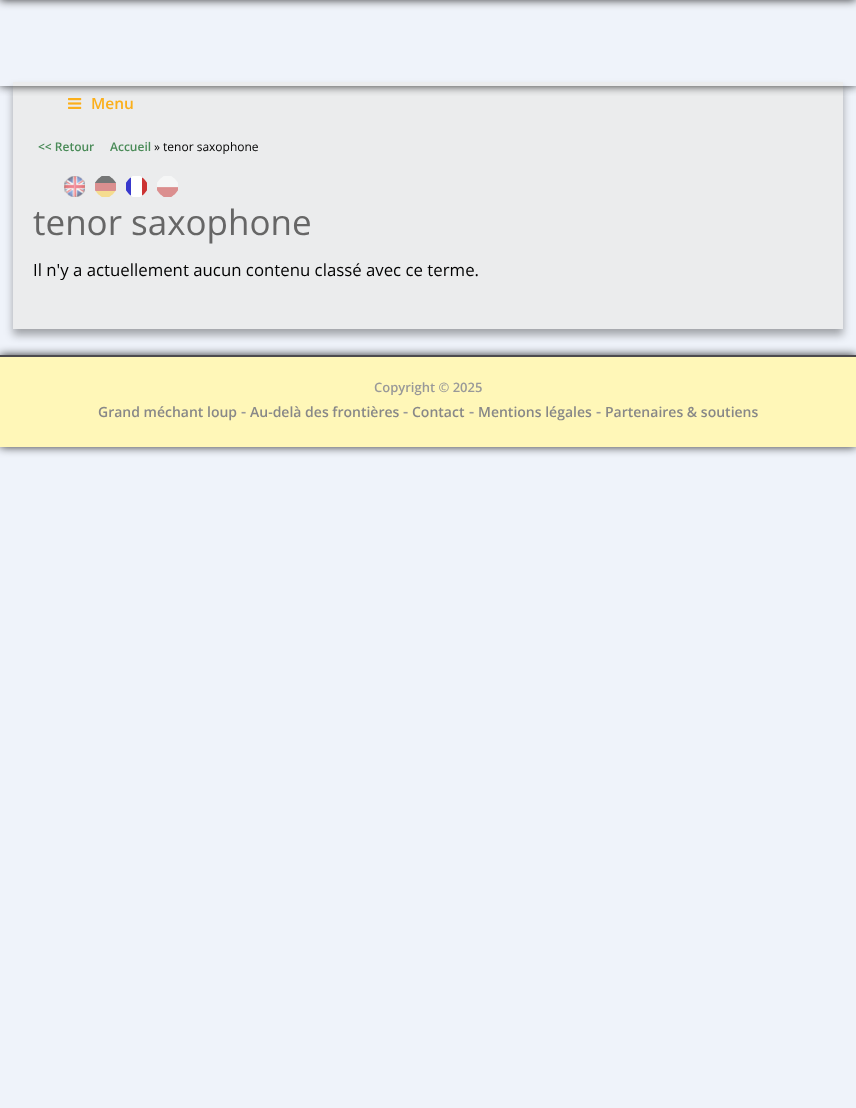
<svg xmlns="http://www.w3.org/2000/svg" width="856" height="1108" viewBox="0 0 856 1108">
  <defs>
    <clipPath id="clip1"><path d="M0 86h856v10H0z"/></clipPath>
  </defs>
  <rect width="100%" height="100%" fill="#eff3fa"/>
  <path d="M0 -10h856v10H0z" fill="#000000cc" filter="blur(5px)"/>
  <path d="M13 88h830v247H13z" fill="#00000054" filter="blur(4px)"/>
  <path d="M13 82h830v247H13z" fill="#ebeced"/>
  <g clip-path="url(#clip1)">
    <path d="M0 -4h856v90H0z" fill="#000000cc" filter="blur(5px)"/>
  </g>
  <image x="68" y="98" width="14" height="11" href="img/1.png"/>
  <image x="64" y="176" width="21" height="21" href="img/2.png"/>
  <image x="95" y="176" width="21" height="21" href="img/3.png"/>
  <image x="126" y="176" width="21" height="21" href="img/4.png"/>
  <image x="157" y="176" width="21" height="21" href="img/5.png"/>
  <path d="M0 355h856v92H0z" fill="#000000cc" filter="blur(5px)"/>
  <path d="M0 357h856v90H0z" fill="#fff7b8"/>
  <path d="M0 355h856v2H0z" fill="#4d4b4e"/>
  <text x="91" y="109" font-family="Open Sans" font-size="15.5" font-weight="600" fill="#fbaf1b">Menu</text>
  <g font-family="Open Sans" font-size="12" font-weight="600" fill="#4a8b58">
    <text x="38" y="151">&lt;&lt; Retour</text>
    <text x="110" y="151">Accueil</text>
  </g>
  <text x="154" y="151" font-family="Open Sans" font-size="12" fill="#000">» tenor saxophone</text>
  <text x="33" y="235" font-family="Open Sans" font-size="35" fill="#666">tenor saxophone</text>
  <text x="33" y="276" font-family="Open Sans" font-size="16.8" fill="#000">Il n'y a actuellement aucun contenu classé avec ce terme.</text>
  <text x="374" y="392" font-family="Open Sans" font-size="13" font-weight="600" fill="#999">Copyright © 2025</text>
  <text x="98" y="417" font-family="Open Sans" font-size="14" font-weight="600" fill="#888">Grand méchant loup</text>
  <text x="241" y="417" font-family="Open Sans" font-size="16" font-weight="600" fill="#999">-</text>
  <text x="250" y="417" font-family="Open Sans" font-size="14" font-weight="600" fill="#888">Au-delà des frontières</text>
  <text x="403" y="417" font-family="Open Sans" font-size="16" font-weight="600" fill="#999">-</text>
  <text x="412" y="417" font-family="Open Sans" font-size="14" font-weight="600" fill="#888">Contact</text>
  <text x="469" y="417" font-family="Open Sans" font-size="16" font-weight="600" fill="#999">-</text>
  <text x="478" y="417" font-family="Open Sans" font-size="14" font-weight="600" fill="#888">Mentions légales</text>
  <text x="596" y="417" font-family="Open Sans" font-size="16" font-weight="600" fill="#999">-</text>
  <text x="605" y="417" font-family="Open Sans" font-size="14" font-weight="600" fill="#888">Partenaires &amp; soutiens</text>
</svg>
